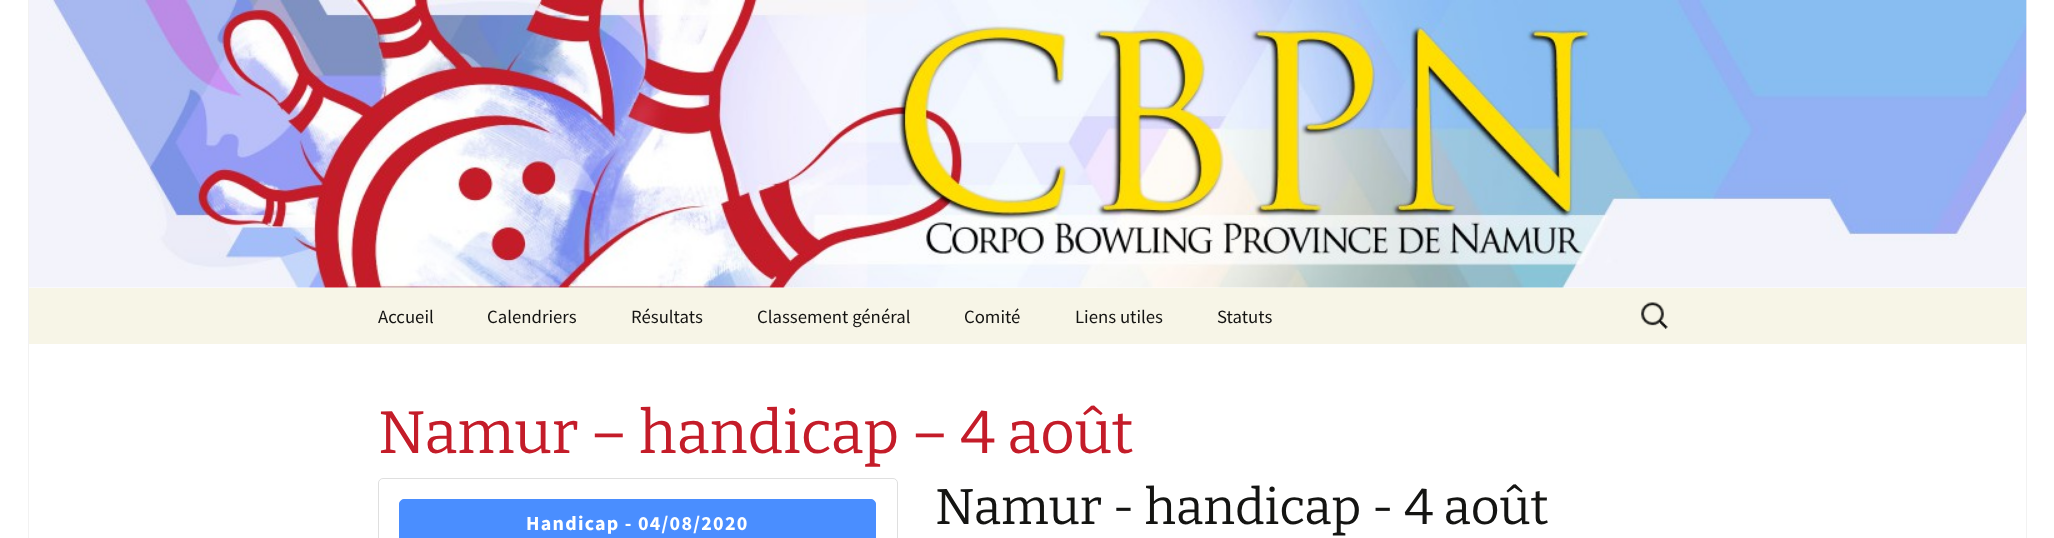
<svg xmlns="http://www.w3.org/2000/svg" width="2054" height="538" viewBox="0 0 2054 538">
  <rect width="100%" height="100%" fill="#fff"/>
  <path d="M2026 0h1v538H2026z" fill="#f2f2f2"/>
  <path d="M28 0h1v538H28z" fill="#f2f2f2"/>
  <image x="29" y="0" width="1998" height="288" href="img/1.png"/>
  <path d="M29 288h1997v56H29z" fill="#f7f5e7"/>
  <image x="1641" y="302" width="27" height="27" href="img/2.png"/>
  <rect x="378.5" y="478.5" width="519" height="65" rx="4.5" fill="none" stroke="#dfdfdf"/>
  <rect x="399.5" y="499.5" width="476" height="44" rx="4.5" fill="#4a8eff" stroke="#4a8eff"/>
  <g font-family="Source Sans Pro" font-size="18.75" fill="#141412">
    <text x="378" y="323">Accueil</text>
    <text x="487" y="323">Calendriers</text>
    <text x="631" y="323">Résultats</text>
    <text x="757" y="323">Classement général</text>
    <text x="964" y="323">Comité</text>
    <text x="1075" y="323">Liens utiles</text>
    <text x="1217" y="323">Statuts</text>
  </g>
  <text x="378" y="453" font-family="Bitter" font-size="60" fill="#c41c29">Namur – handicap – 4 août</text>
  <text x="526" y="530" font-family="Source Sans Pro" font-size="20" font-weight="bold" letter-spacing="1.25" fill="#fff">Handicap - 04/08/2020</text>
  <text x="935" y="524" font-family="Bitter" font-size="50" fill="#141412">Namur - handicap - 4 août</text>
</svg>
